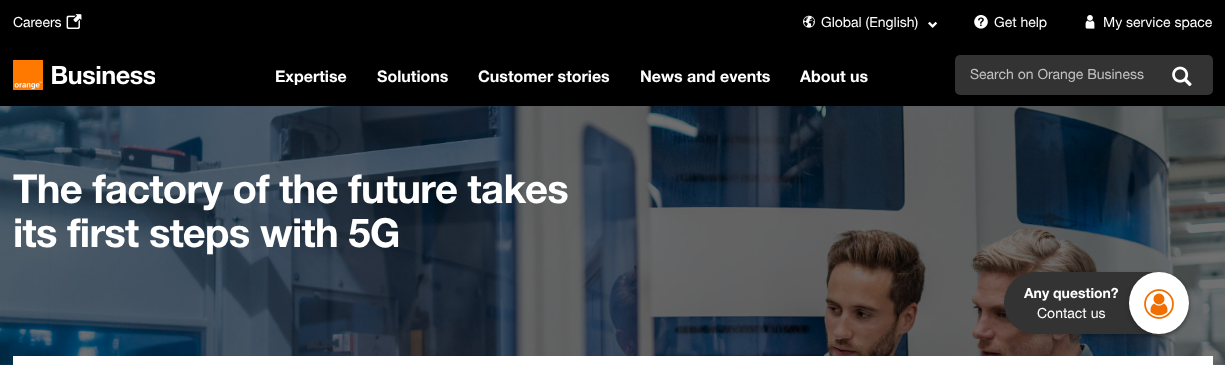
<svg xmlns="http://www.w3.org/2000/svg" width="1225" height="365" viewBox="0 0 1225 365">
  <rect width="100%" height="100%" fill="#fff"/>
  <image x="0" y="106" width="1225" height="259" href="img/1.png"/>
  <path d="M0 0h1225v106H0z" fill="#000"/>
  <image x="66" y="14" width="16" height="15" href="img/2.png"/>
  <image x="803" y="15" width="12" height="13" href="img/3.png"/>
  <image x="928" y="21" width="10" height="7" href="img/4.png"/>
  <image x="974" y="15" width="14" height="14" href="img/5.png"/>
  <image x="1085" y="15" width="10" height="14" href="img/6.png"/>
  <image x="13" y="60" width="142" height="30" href="img/7.png"/>
  <rect x="955" y="55" width="258" height="40" rx="5" fill="#333"/>
  <image x="1172" y="66" width="20" height="21" href="img/8.png"/>
  <rect x="1004" y="274" width="185" height="62" rx="31" fill="#00000040" filter="blur(2px)"/>
  <rect x="1004" y="272" width="185" height="62" rx="31" fill="#333"/>
  <rect x="1129" y="274" width="60" height="62" rx="30" fill="#00000040" filter="blur(2px)"/>
  <ellipse cx="1159" cy="303" rx="30" ry="31" fill="#fff"/>
  <image x="1144" y="289" width="30" height="30" href="img/9.png"/>
  <path d="M13 356h1200v9H13z" fill="#fff"/>
  <g font-family="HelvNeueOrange" font-size="14" fill="#fff">
    <text x="13" y="27">Careers</text>
    <text x="821" y="27">Global (English)</text>
    <text x="994" y="27">Get help</text>
    <text x="1103" y="27">My service space</text>
  </g>
  <g font-family="HelvNeueOrange" font-size="16" font-weight="bold" fill="#fff">
    <text x="275" y="82">Expertise</text>
    <text x="377" y="82">Solutions</text>
    <text x="478" y="82">Customer stories</text>
    <text x="640" y="82">News and events</text>
    <text x="800" y="82">About us</text>
  </g>
  <text x="970" y="79" font-family="HelvNeueOrange" font-size="14" fill="#c2c2c2">Search on Orange Business</text>
  <g font-family="HelvNeueOrange" font-size="40" font-weight="bold" letter-spacing="-0.7" fill="#fff">
    <text x="13" y="203">The factory of the future takes</text>
    <text x="13" y="247">its first steps with 5G</text>
  </g>
  <text x="1024" y="298" font-family="HelvNeueOrange" font-size="14" font-weight="bold" fill="#fff">Any question?</text>
  <text x="1037" y="318" font-family="HelvNeueOrange" font-size="14" fill="#fff">Contact us</text>
</svg>
